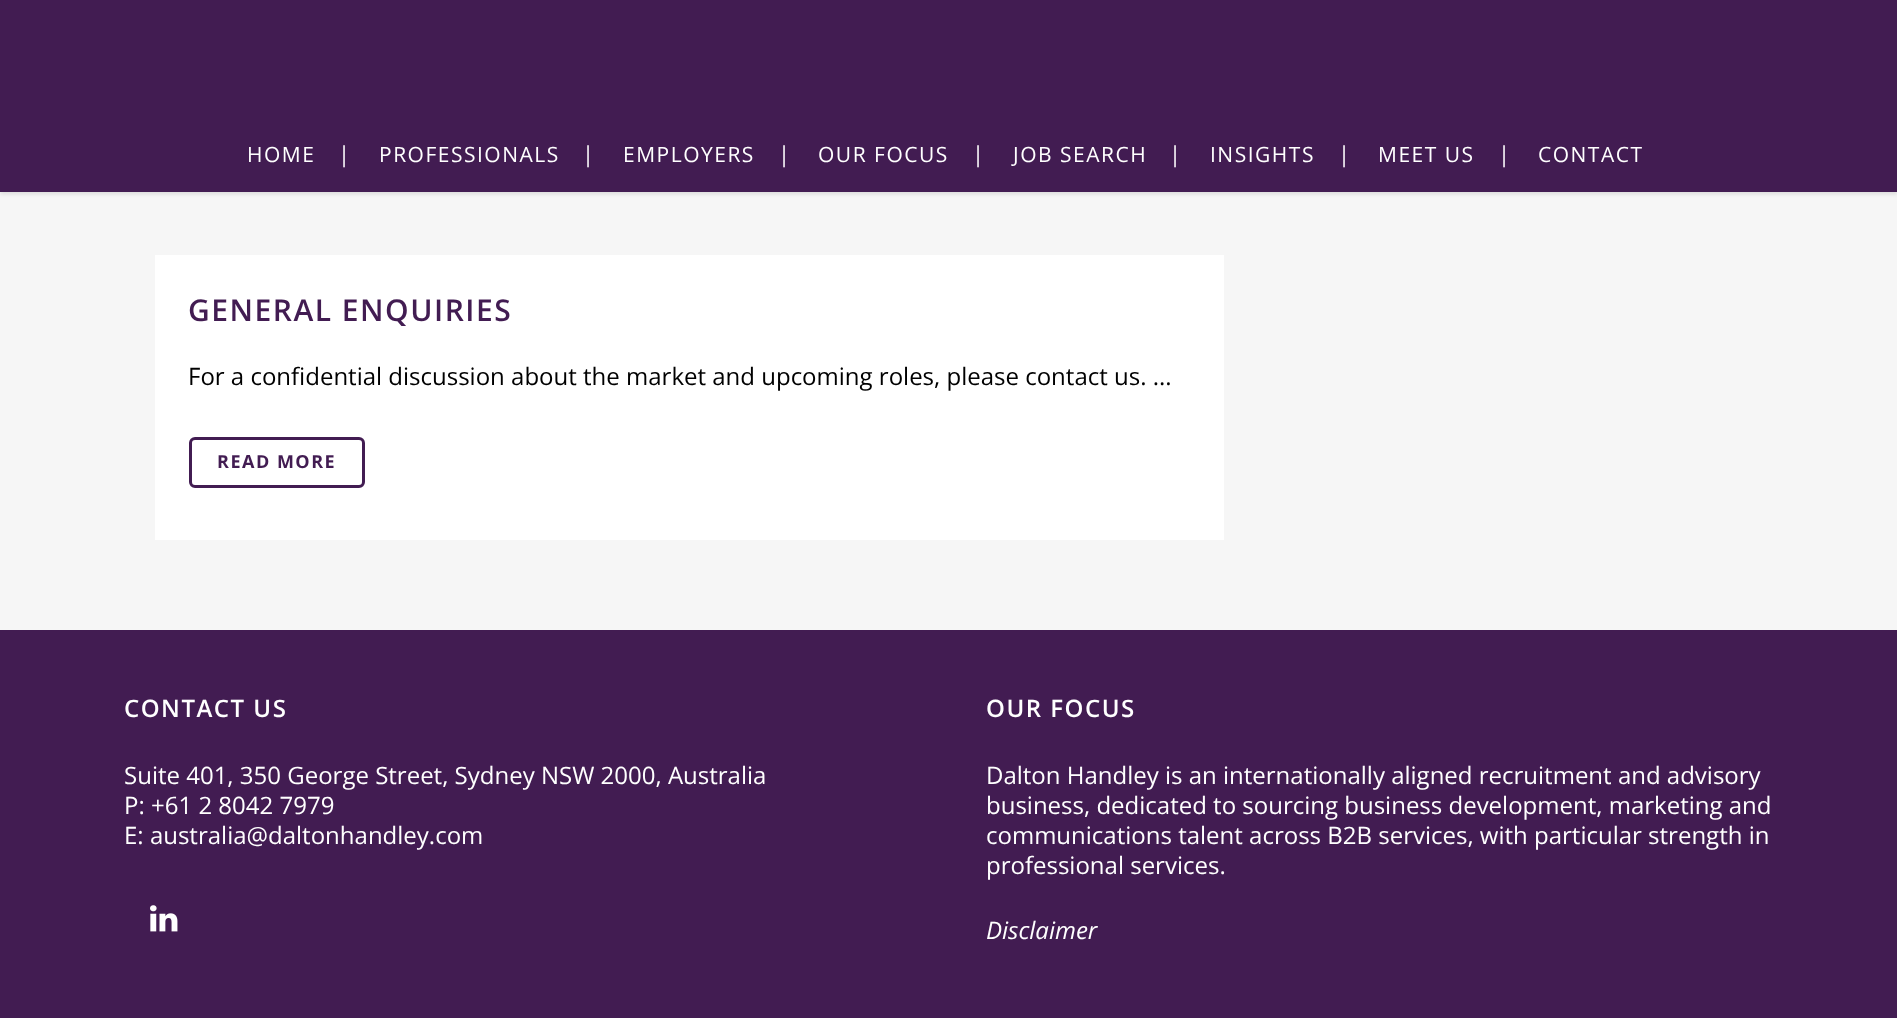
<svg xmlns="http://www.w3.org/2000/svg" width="1897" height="1018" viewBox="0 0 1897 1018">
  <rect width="100%" height="100%" fill="#f6f6f6"/>
  <path d="M0 2h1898v192H0z" fill="#0000001c" filter="blur(2px)"/>
  <path d="M0 0h1897v192H0z" fill="#421c52"/>
  <path d="M155 255h1069v285H155z" fill="#fff"/>
  <rect x="190.5" y="438.5" width="173" height="48" rx="4.5" fill="none" stroke="#421c52" stroke-width="3"/>
  <path d="M0 630h1897v388H0z" fill="#421c52"/>
  <image x="150" y="905" width="28" height="27" href="img/1.png"/>
  <text x="247" y="162" font-family="Open Sans" font-size="21" letter-spacing="1.5" fill="#fff">HOME</text>
  <text x="338" y="162" font-family="Open Sans" font-size="22" fill="#fff">|</text>
  <text x="379" y="162" font-family="Open Sans" font-size="21" letter-spacing="1.5" fill="#fff">PROFESSIONALS</text>
  <text x="582" y="162" font-family="Open Sans" font-size="22" fill="#fff">|</text>
  <text x="623" y="162" font-family="Open Sans" font-size="21" letter-spacing="1.5" fill="#fff">EMPLOYERS</text>
  <text x="778" y="162" font-family="Open Sans" font-size="22" fill="#fff">|</text>
  <text x="818" y="162" font-family="Open Sans" font-size="21" letter-spacing="1.5" fill="#fff">OUR FOCUS</text>
  <text x="972" y="162" font-family="Open Sans" font-size="22" fill="#fff">|</text>
  <text x="1013" y="162" font-family="Open Sans" font-size="21" letter-spacing="1.5" fill="#fff">JOB SEARCH</text>
  <text x="1169" y="162" font-family="Open Sans" font-size="22" fill="#fff">|</text>
  <text x="1210" y="162" font-family="Open Sans" font-size="21" letter-spacing="1.5" fill="#fff">INSIGHTS</text>
  <text x="1338" y="162" font-family="Open Sans" font-size="22" fill="#fff">|</text>
  <text x="1378" y="162" font-family="Open Sans" font-size="21" letter-spacing="1.5" fill="#fff">MEET US</text>
  <text x="1498" y="162" font-family="Open Sans" font-size="22" fill="#fff">|</text>
  <text x="1538" y="162" font-family="Open Sans" font-size="21" letter-spacing="1.5" fill="#fff">CONTACT</text>
  <text x="188" y="321" font-family="Open Sans" font-size="30" font-weight="600" letter-spacing="1.5" fill="#421c52">GENERAL ENQUIRIES</text>
  <text x="188" y="385" font-family="Open Sans" font-size="24" fill="#000">For a confidential discussion about the market and upcoming roles, please contact us. ...</text>
  <text x="217" y="468" font-family="Open Sans" font-size="18" font-weight="bold" letter-spacing="1.5" fill="#421c52">READ MORE</text>
  <text x="124" y="717" font-family="Open Sans" font-size="24" font-weight="600" letter-spacing="1.5" fill="#fff">CONTACT US</text>
  <g font-family="Open Sans" font-size="24" fill="#fff">
    <text x="124" y="784">Suite 401, 350 George Street, Sydney NSW 2000, Australia</text>
    <text x="124" y="814">P: +61 2 8042 7979</text>
    <text x="124" y="844">E: australia@daltonhandley.com</text>
  </g>
  <text x="986" y="717" font-family="Open Sans" font-size="24" font-weight="600" letter-spacing="1.5" fill="#fff">OUR FOCUS</text>
  <g font-family="Open Sans" font-size="24" fill="#fff">
    <text x="986" y="784">Dalton Handley is an internationally aligned recruitment and advisory</text>
    <text x="986" y="814">business, dedicated to sourcing business development, marketing and</text>
    <text x="986" y="844">communications talent across B2B services, with particular strength in</text>
    <text x="986" y="874">professional services.</text>
  </g>
  <text x="986" y="939" font-family="Open Sans" font-size="24" font-style="italic" fill="#fff">Disclaimer</text>
</svg>
